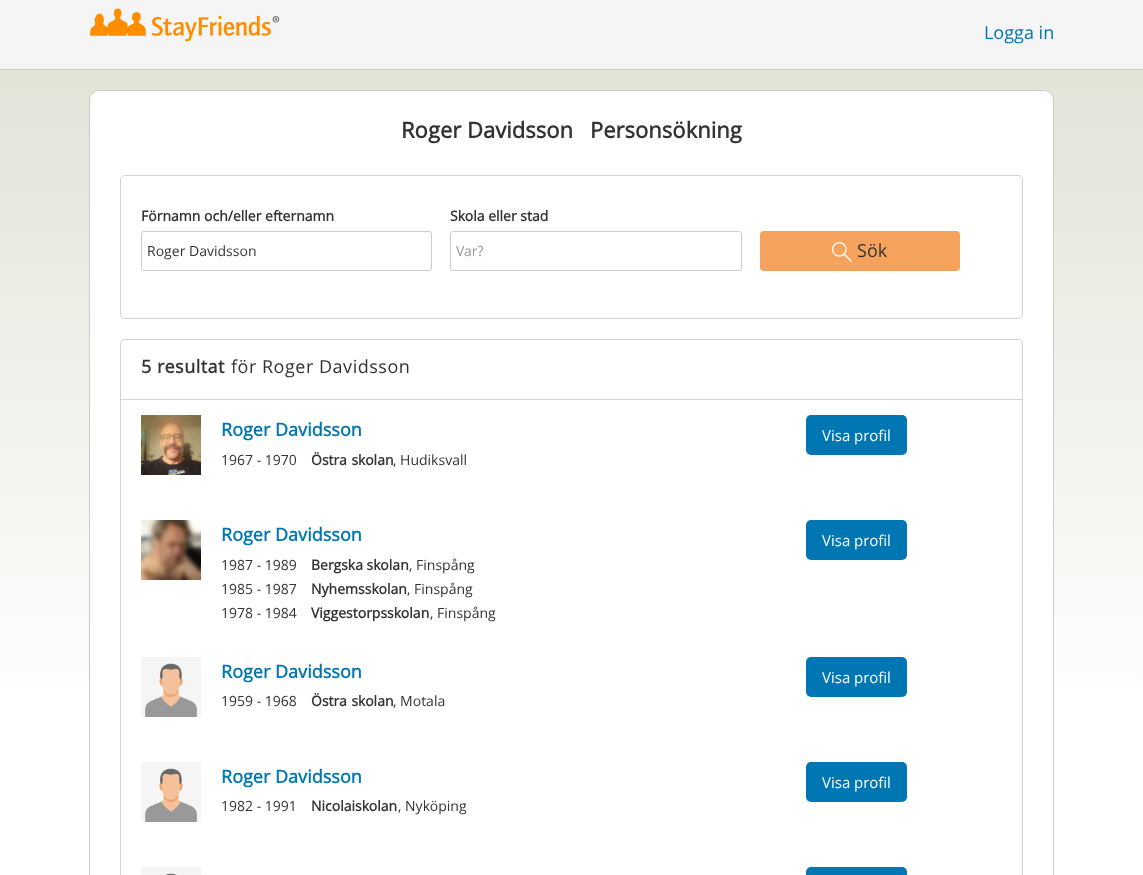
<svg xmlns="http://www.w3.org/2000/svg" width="1143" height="875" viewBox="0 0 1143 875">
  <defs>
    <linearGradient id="g1" gradientUnits="userSpaceOnUse" x1="571" y1="0" x2="572" y2="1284"><stop offset="0.06" stop-color="#e4e3d8"/><stop offset="0.55" stop-color="#fefefe"/></linearGradient>
  </defs>
  <rect width="100%" height="100%" fill="#fff"/>
  <path d="M0 70h1143v612H0z" fill="url(#g1)"/>
  <path d="M0 0h1143v69H0z" fill="#f5f5f5"/>
  <path d="M0 69h1143v1H0z" fill="#ccc"/>
  <image x="90" y="8" width="190" height="33" href="img/1.png"/>
  <rect x="89.5" y="90.5" width="964" height="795" rx="9.5" fill="#fff" stroke="#ccc"/>
  <rect x="120.5" y="175.5" width="902" height="143" rx="4.5" fill="none" stroke="#d3d3d3"/>
  <rect x="141.5" y="231.5" width="290" height="39" rx="2.5" fill="none" stroke="#ccc"/>
  <rect x="450.5" y="231.5" width="291" height="39" rx="2.5" fill="none" stroke="#ccc"/>
  <rect x="760" y="231" width="200" height="40" rx="4" fill="#f5a25d"/>
  <image x="832" y="242" width="20" height="20" href="img/2.png"/>
  <rect x="120.5" y="339.5" width="902" height="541" rx="4.5" fill="none" stroke="#d3d3d3"/>
  <path d="M121 399h901v1H121z" fill="#d3d3d3"/>
  <image x="141" y="415" width="60" height="60" href="img/3.png"/>
  <rect x="806" y="415" width="101" height="40" rx="5" fill="#0077b3"/>
  <image x="141" y="520" width="60" height="60" href="img/4.png"/>
  <rect x="806" y="520" width="101" height="40" rx="5" fill="#0077b3"/>
  <image x="141" y="657" width="60" height="60" href="img/5.png"/>
  <rect x="806" y="657" width="101" height="40" rx="5" fill="#0077b3"/>
  <image x="141" y="762" width="60" height="60" href="img/5.png"/>
  <rect x="806" y="762" width="101" height="40" rx="5" fill="#0077b3"/>
  <image x="141" y="867" width="60" height="8" href="img/6.png"/>
  <rect x="806" y="867" width="101" height="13" rx="5" fill="#0077b3"/>
  <text x="984" y="39" font-family="Open Sans" font-size="18" fill="#0077b2">Logga in</text>
  <g font-family="Open Sans" font-size="22" font-weight="bold" fill="#333">
    <text x="401" y="138">Roger Davidsson</text>
    <text x="590" y="138">Personsökning</text>
  </g>
  <text x="141" y="221" font-family="Open Sans" font-size="14" font-weight="bold" fill="#333">Förnamn och/eller efternamn</text>
  <text x="147" y="256" font-family="Open Sans" font-size="14" fill="#333">Roger Davidsson</text>
  <text x="450" y="221" font-family="Open Sans" font-size="14" font-weight="bold" fill="#333">Skola eller stad</text>
  <text x="456" y="256" font-family="Open Sans" font-size="14" fill="#999">Var?</text>
  <text x="857" y="257" font-family="Open Sans" font-size="18" fill="#333">Sök</text>
  <text x="141" y="373" font-family="Open Sans" font-size="18" font-weight="bold" letter-spacing="0.5" fill="#333">5 resultat</text>
  <text x="231" y="373" font-family="Open Sans" font-size="18" letter-spacing="0.5" fill="#333">för Roger Davidsson</text>
  <text x="221" y="436" font-family="Open Sans" font-size="18" font-weight="bold" fill="#0077b2">Roger Davidsson</text>
  <text x="822" y="441" font-family="Open Sans" font-size="15" fill="#fff">Visa profil</text>
  <text x="221" y="465" font-family="Open Sans" font-size="14" fill="#333">1967 - 1970</text>
  <text x="311" y="465" word-spacing="1" font-family="Open Sans" font-size="14" font-weight="bold" fill="#333">Östra skolan</text>
  <text x="393" y="465" font-family="Open Sans" font-size="14" fill="#333">, Hudiksvall</text>
  <text x="221" y="541" font-family="Open Sans" font-size="18" font-weight="bold" fill="#0077b2">Roger Davidsson</text>
  <text x="822" y="546" font-family="Open Sans" font-size="15" fill="#fff">Visa profil</text>
  <text x="221" y="570" font-family="Open Sans" font-size="14" fill="#333">1987 - 1989</text>
  <text x="311" y="570" font-family="Open Sans" font-size="14" font-weight="bold" fill="#333">Bergska skolan</text>
  <g font-family="Open Sans" font-size="14" fill="#333">
    <text x="409" y="570">, Finspång</text>
    <text x="221" y="594">1985 - 1987</text>
  </g>
  <text x="311" y="594" font-family="Open Sans" font-size="14" font-weight="bold" fill="#333">Nyhemsskolan</text>
  <g font-family="Open Sans" font-size="14" fill="#333">
    <text x="407" y="594">, Finspång</text>
    <text x="221" y="618">1978 - 1984</text>
  </g>
  <text x="311" y="618" font-family="Open Sans" font-size="14" font-weight="bold" fill="#333">Viggestorpsskolan</text>
  <text x="430" y="618" font-family="Open Sans" font-size="14" fill="#333">, Finspång</text>
  <text x="221" y="678" font-family="Open Sans" font-size="18" font-weight="bold" fill="#0077b2">Roger Davidsson</text>
  <text x="822" y="683" font-family="Open Sans" font-size="15" fill="#fff">Visa profil</text>
  <text x="221" y="706" font-family="Open Sans" font-size="14" fill="#333">1959 - 1968</text>
  <text x="311" y="706" word-spacing="1" font-family="Open Sans" font-size="14" font-weight="bold" fill="#333">Östra skolan</text>
  <text x="393" y="706" font-family="Open Sans" font-size="14" fill="#333">, Motala</text>
  <text x="221" y="783" font-family="Open Sans" font-size="18" font-weight="bold" fill="#0077b2">Roger Davidsson</text>
  <text x="822" y="788" font-family="Open Sans" font-size="15" fill="#fff">Visa profil</text>
  <text x="221" y="811" font-family="Open Sans" font-size="14" fill="#333">1982 - 1991</text>
  <text x="311" y="811" font-family="Open Sans" font-size="14" font-weight="bold" fill="#333">Nicolaiskolan</text>
  <text x="398" y="811" font-family="Open Sans" font-size="14" fill="#333">, Nyköping</text>
</svg>
